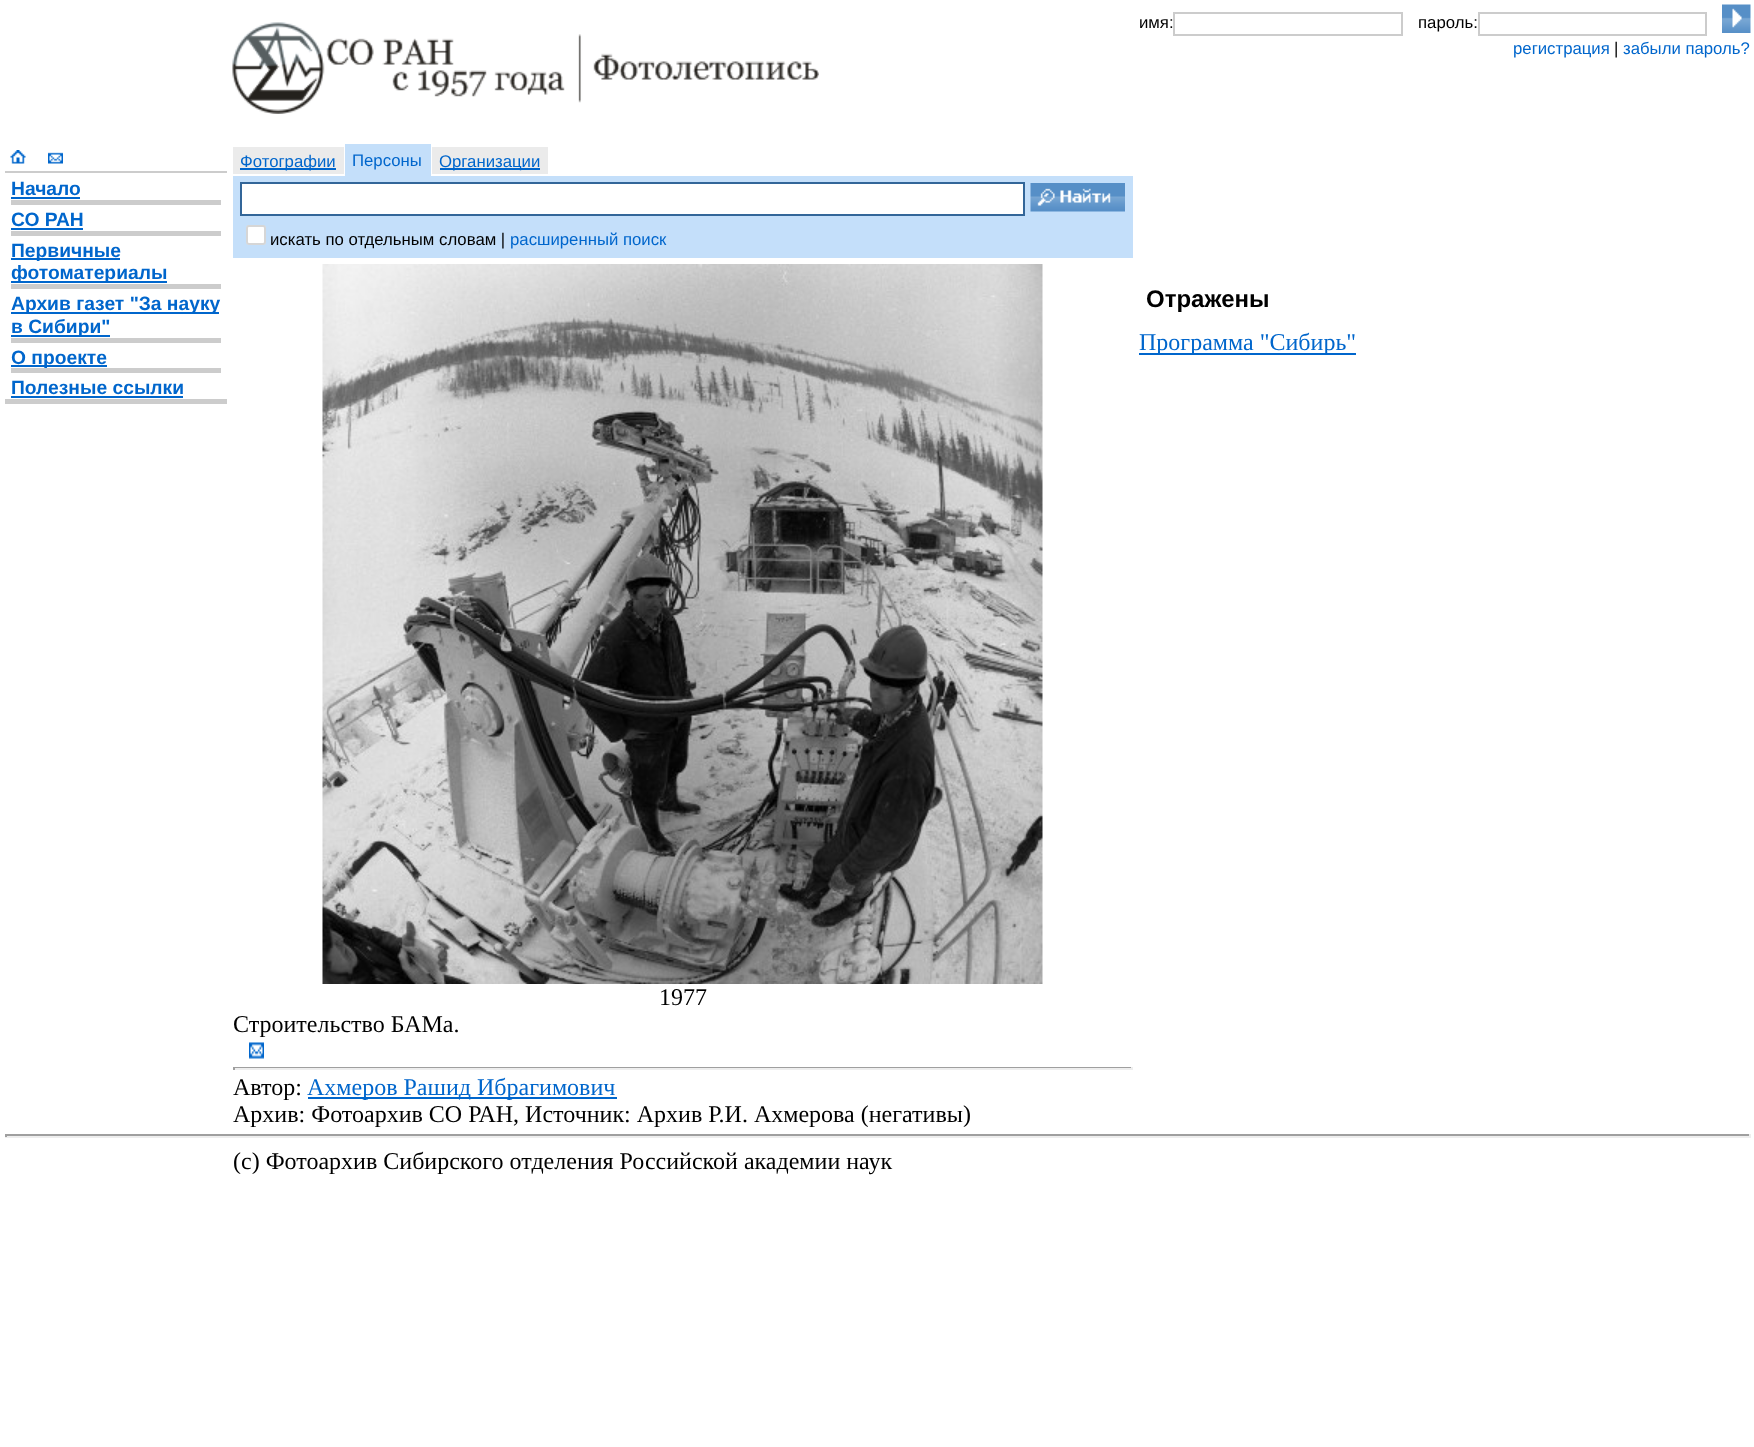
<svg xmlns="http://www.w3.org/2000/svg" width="1754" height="1447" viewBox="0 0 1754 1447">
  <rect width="100%" height="100%" fill="#fff"/>
  <image x="232" y="22" width="587" height="92" href="img/1.png"/>
  <path d="M1174 13h228v22H1174z" fill="none" stroke="#ccc" stroke-width="2"/>
  <path d="M1479 13h227v22H1479z" fill="none" stroke="#ccc" stroke-width="2"/>
  <image x="1722" y="4" width="29" height="29" href="img/2.png"/>
  <image x="10" y="150" width="16" height="14" href="img/3.png"/>
  <image x="48" y="152" width="15" height="12" href="img/4.png"/>
  <path d="M5 171h222v2H5z" fill="#ccc"/>
  <path d="M11 197h69v2H11z" fill="#06c"/>
  <path d="M11 200h210v5H11z" fill="#ccc"/>
  <path d="M11 228h72v2H11z" fill="#06c"/>
  <path d="M11 231h210v5H11z" fill="#ccc"/>
  <path d="M11 258h109v2H11z" fill="#06c"/>
  <path d="M11 281h156v2H11z" fill="#06c"/>
  <path d="M11 284h210v5H11z" fill="#ccc"/>
  <path d="M11 312h208v2H11z" fill="#06c"/>
  <path d="M11 335h99v2H11z" fill="#06c"/>
  <path d="M11 338h210v5H11z" fill="#ccc"/>
  <path d="M11 365h96v2H11z" fill="#06c"/>
  <path d="M11 368h210v5H11z" fill="#ccc"/>
  <path d="M11 396h172v2H11z" fill="#06c"/>
  <path d="M5 399h222v5H5z" fill="#ccc"/>
  <path d="M233 147h111v27H233z" fill="#ebebeb"/>
  <path d="M240 168h96v2H240z" fill="#06c"/>
  <path d="M345 144h86v32H345z" fill="#c4dffa"/>
  <path d="M432 147h116v27H432z" fill="#ebebeb"/>
  <path d="M440 168h100v2H440z" fill="#06c"/>
  <path d="M233 176h900v82H233z" fill="#c4dffa"/>
  <path d="M241 183h783v32H241z" fill="#fff" stroke="#369" stroke-width="2"/>
  <image x="1030" y="183" width="95" height="29" href="img/5.png"/>
  <rect x="246" y="225" width="20" height="20" rx="3" fill="#fff"/>
  <rect x="247" y="226" width="18" height="18" rx="2" fill="none" stroke="#7676764d" stroke-width="2"/>
  <path d="M1139 353h217v2H1139z" fill="#06c"/>
  <image x="322" y="264" width="721" height="720" href="img/6.png"/>
  <image x="249" y="1042" width="15" height="17" href="img/7.png"/>
  <path d="M233 1067h900v1H233z" fill="#9f9f9f"/>
  <path d="M1131 1067h2v3H1131z" fill="#eee"/>
  <path d="M233 1068h900v2H233z" fill="#eee"/>
  <path d="M233 1067h2v3H233z" fill="#9f9f9f"/>
  <path d="M308 1097h309v2H308z" fill="#06c"/>
  <path d="M5 1134h1746v2H5z" fill="#9f9f9f"/>
  <path d="M1749 1134h2v3H1749z" fill="#eee"/>
  <path d="M5 1136h1746v2H5z" fill="#eee"/>
  <path d="M5 1134h2v3H5z" fill="#9f9f9f"/>
  <g font-family="Liberation Sans" font-size="16.75" fill="#000">
    <text x="1139" y="28">имя:</text>
    <text x="1418" y="28">пароль:</text>
  </g>
  <text x="1513" y="54" font-family="Liberation Sans" font-size="16.75" fill="#06c">регистрация</text>
  <text x="1614" y="54" font-family="Liberation Sans" font-size="16.75" fill="#000">|</text>
  <text x="1623" y="54" font-family="Liberation Sans" font-size="16.75" fill="#06c">забыли пароль?</text>
  <g font-family="Liberation Sans" font-size="19.25" font-weight="bold" fill="#06c">
    <text x="11" y="195">Начало</text>
    <text x="11" y="226">СО РАН</text>
    <text x="11" y="257">Первичные</text>
    <text x="11" y="279">фотоматериалы</text>
    <text x="11" y="310">Архив газет "За науку</text>
    <text x="11" y="333">в Сибири"</text>
    <text x="11" y="364">О проекте</text>
    <text x="11" y="394">Полезные ссылки</text>
  </g>
  <g font-family="Liberation Sans" font-size="16.75" fill="#06c">
    <text x="240" y="167">Фотографии</text>
    <text x="352" y="166">Персоны</text>
    <text x="439" y="167">Организации</text>
  </g>
  <text x="270" y="245" font-family="Liberation Sans" font-size="16.75" fill="#000">искать по отдельным словам |</text>
  <text x="510" y="245" font-family="Liberation Sans" font-size="16.75" fill="#06c">расширенный поиск</text>
  <text x="1146" y="307" font-family="Liberation Sans" font-size="24" font-weight="bold" fill="#000">Отражены</text>
  <text x="1139" y="350" font-family="Liberation Serif" font-size="24" fill="#06c">Программа "Сибирь"</text>
  <g font-family="Liberation Serif" font-size="24" fill="#000">
    <text x="659" y="1005">1977</text>
    <text x="233" y="1032">Строительство БАМа.</text>
    <text x="233" y="1095">Автор:</text>
  </g>
  <text x="307" y="1095" font-family="Liberation Serif" font-size="24" fill="#06c">Ахмеров Рашид Ибрагимович</text>
  <g font-family="Liberation Serif" font-size="24" fill="#000">
    <text x="233" y="1122">Архив: Фотоархив СО РАН, Источник: Архив Р.И. Ахмерова (негативы)</text>
    <text x="233" y="1169">(c) Фотоархив Сибирского отделения Российской академии наук</text>
  </g>
</svg>
